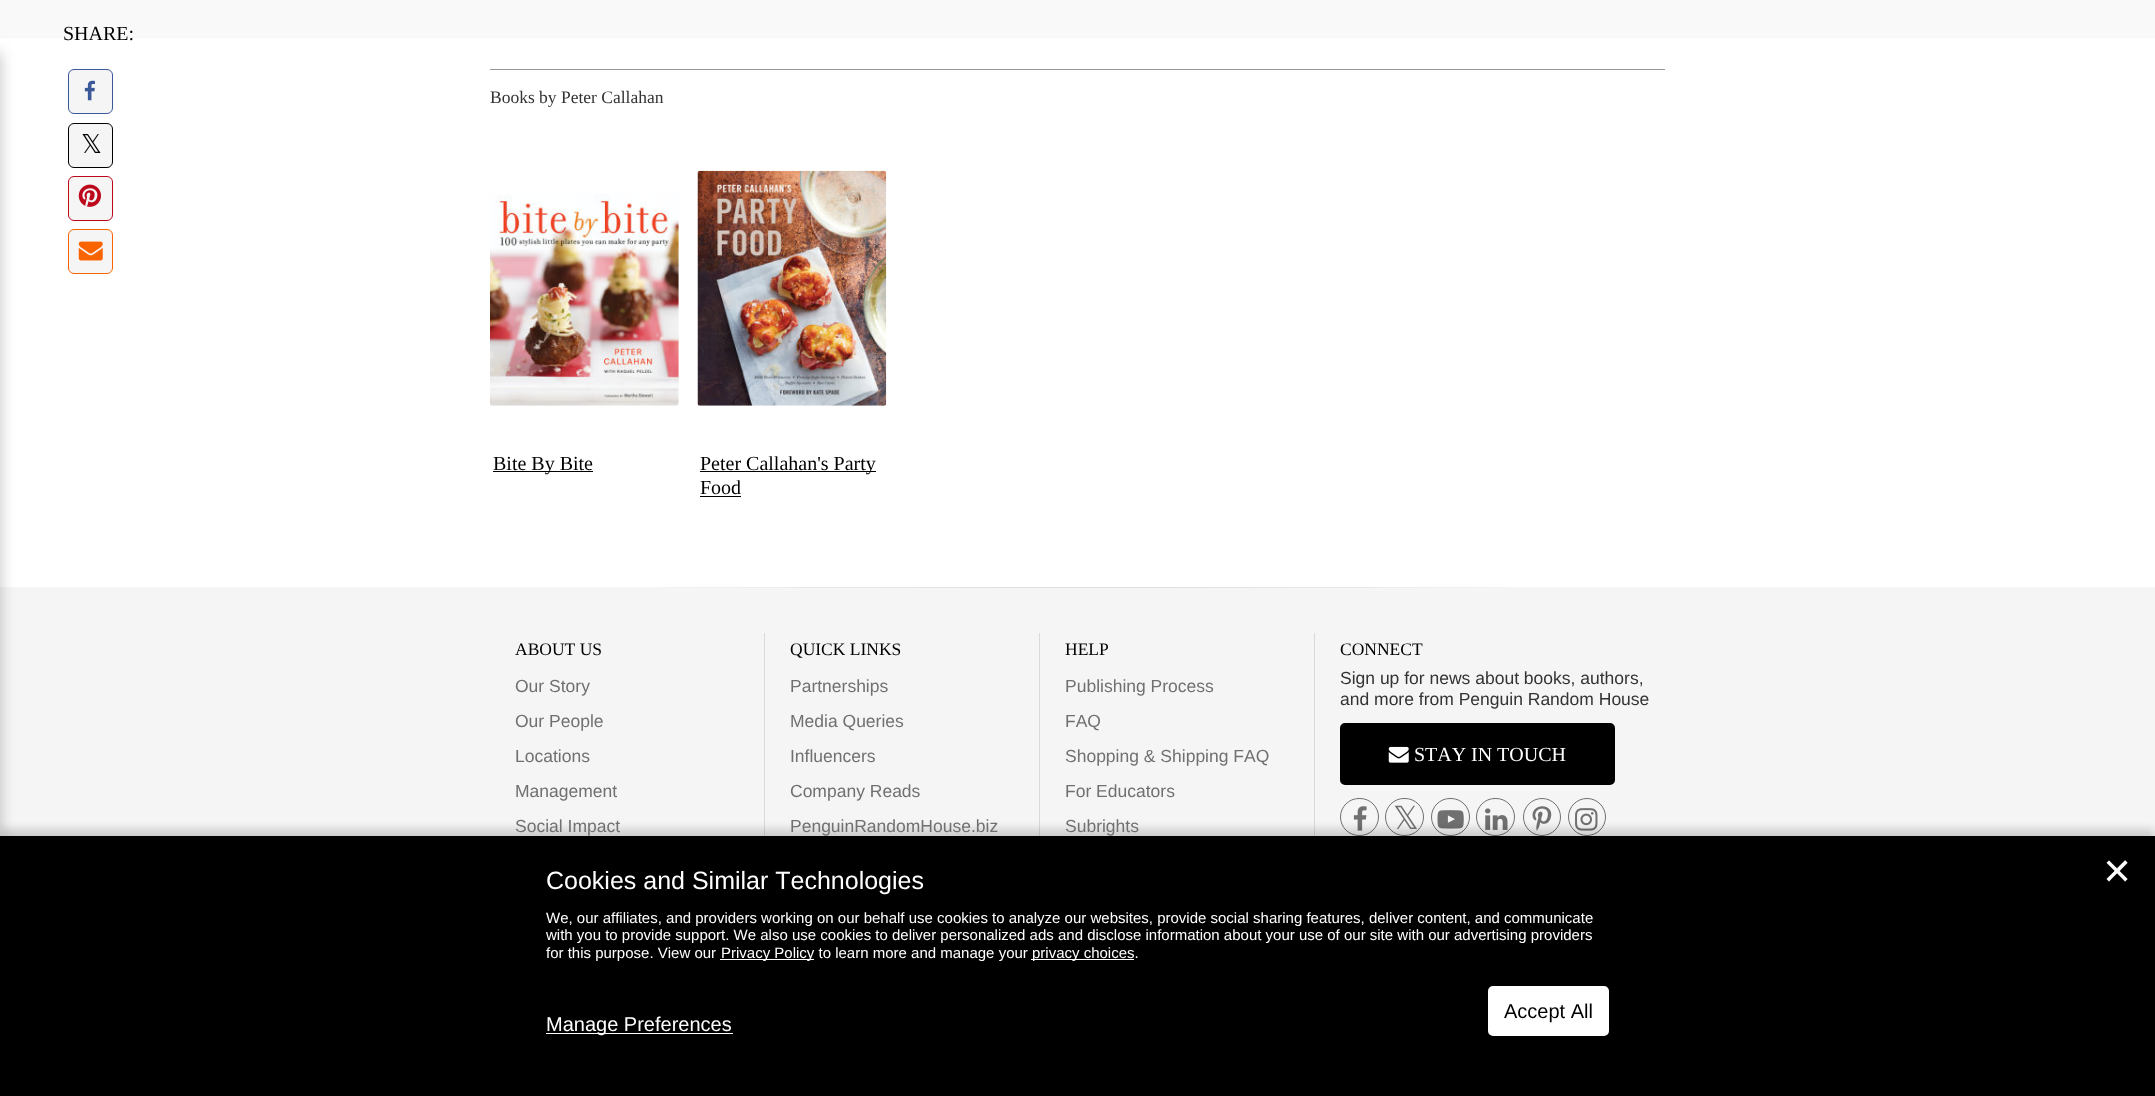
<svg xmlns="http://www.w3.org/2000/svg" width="2155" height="1096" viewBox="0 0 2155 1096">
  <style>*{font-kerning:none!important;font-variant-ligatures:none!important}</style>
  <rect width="100%" height="100%" fill="#fff"/>
  <path d="M0 37h2155v1H0z" fill="#f6f6f6"/>
  <path d="M0 0h2155v37H0z" fill="#f9f9f9"/>
  <image x="0" y="587" width="2155" height="1" href="img/6.png"/>
  <path d="M0 588h2155v248H0z" fill="#f5f5f5"/>
  <path d="M-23 53h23v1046H-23z" fill="#0000003d" filter="blur(7.5px)"/>
  <rect x="68.5" y="69.5" width="44" height="44" rx="5.5" fill="#f5f5f5" stroke="#3b5998"/>
  <image x="84" y="80" width="11" height="21" href="img/1.png"/>
  <rect x="68.5" y="123.5" width="44" height="44" rx="5.5" fill="#f5f5f5" stroke="#000"/>
  <rect x="68.5" y="176.5" width="44" height="44" rx="5.5" fill="#f5f5f5" stroke="#bd081c"/>
  <image x="78" y="184" width="23" height="23" href="img/2.png"/>
  <rect x="68.5" y="229.5" width="44" height="44" rx="5.5" fill="#f5f5f5" stroke="#fa6400"/>
  <image x="78" y="241" width="25" height="20" href="img/3.png"/>
  <path d="M490 69h1175v1H490z" fill="#979797"/>
  <image x="490" y="194" width="189" height="212" href="img/4.png"/>
  <path d="M493 471h100v1H493z" fill="#000"/>
  <image x="697" y="170" width="190" height="236" href="img/5.png"/>
  <path d="M700 471h176v1H700z" fill="#000"/>
  <path d="M700 496h41v1H700z" fill="#000"/>
  <path d="M764 633h1v203H764z" fill="#d9d9d9"/>
  <path d="M1039 633h1v203H1039z" fill="#d9d9d9"/>
  <path d="M1314 633h1v203H1314z" fill="#d9d9d9"/>
  <rect x="1341.5" y="724.5" width="272" height="59" rx="3.5" fill="#000" stroke="#000" stroke-width="3"/>
  <image x="1388" y="746" width="21" height="17" href="img/7.png"/>
  <rect x="1340.5" y="798.5" width="38" height="37" rx="18.5" fill="none" stroke="#707070"/>
  <image x="1353" y="806" width="14" height="25" href="img/8.png"/>
  <rect x="1385.5" y="798.5" width="38" height="37" rx="18.5" fill="none" stroke="#707070"/>
  <rect x="1431.5" y="798.5" width="38" height="37" rx="18.5" fill="none" stroke="#707070"/>
  <image x="1437" y="810" width="27" height="19" href="img/9.png"/>
  <rect x="1476.5" y="798.5" width="38" height="37" rx="18.5" fill="none" stroke="#707070"/>
  <image x="1485" y="808" width="23" height="22" href="img/10.png"/>
  <circle cx="1542" cy="817" r="18.5" fill="none" stroke="#707070"/>
  <image x="1532" y="806" width="20" height="25" href="img/11.png"/>
  <circle cx="1587" cy="817" r="18.5" fill="none" stroke="#707070"/>
  <image x="1575" y="808" width="23" height="23" href="img/12.png"/>
  <path d="M0 829h2155v260H0z" fill="#00000029" filter="blur(4px)"/>
  <path d="M0 836h2155v260H0z" fill="#000"/>
  <path d="M720 959h94v1H720z" fill="#fff"/>
  <path d="M1031 959h103v1H1031z" fill="#fff"/>
  <rect x="1489.5" y="987.5" width="118" height="47" rx="3.5" fill="#fff" stroke="#fff" stroke-width="3"/>
  <path d="M546 1033h187v1H546z" fill="#fff"/>
  <text x="63" y="40" font-family="Liberation Serif" font-size="20" fill="#000">SHARE:</text>
  <text x="81" y="153" font-family="DejaVu Sans" font-size="26" fill="#000">𝕏</text>
  <text x="490" y="103" font-family="Liberation Serif" font-size="17.5" fill="#333">Books by Peter Callahan</text>
  <g font-family="Liberation Serif" font-size="20" fill="#000">
    <text x="493" y="470">Bite By Bite</text>
    <text x="700" y="470">Peter Callahan's Party</text>
    <text x="700" y="494">Food</text>
  </g>
  <text x="515" y="655" font-family="Liberation Serif" font-size="17.5" fill="#000">ABOUT US</text>
  <g font-family="Liberation Sans" font-size="17.5" fill="#707070">
    <text x="515" y="692">Our Story</text>
    <text x="515" y="727">Our People</text>
    <text x="515" y="762">Locations</text>
    <text x="515" y="797">Management</text>
    <text x="515" y="832">Social Impact</text>
  </g>
  <text x="790" y="655" font-family="Liberation Serif" font-size="17.5" fill="#000">QUICK LINKS</text>
  <g font-family="Liberation Sans" font-size="17.5" fill="#707070">
    <text x="790" y="692">Partnerships</text>
    <text x="790" y="727">Media Queries</text>
    <text x="790" y="762">Influencers</text>
    <text x="790" y="797">Company Reads</text>
    <text x="790" y="832">PenguinRandomHouse.biz</text>
  </g>
  <text x="1065" y="655" font-family="Liberation Serif" font-size="17.5" fill="#000">HELP</text>
  <g font-family="Liberation Sans" font-size="17.5" fill="#707070">
    <text x="1065" y="692">Publishing Process</text>
    <text x="1065" y="727">FAQ</text>
    <text x="1065" y="762">Shopping &amp; Shipping FAQ</text>
    <text x="1065" y="797">For Educators</text>
    <text x="1065" y="832">Subrights</text>
  </g>
  <text x="1340" y="655" font-family="Liberation Serif" font-size="17.5" fill="#000">CONNECT</text>
  <g font-family="Liberation Sans" font-size="17.5" fill="#333">
    <text x="1340" y="684">Sign up for news about books, authors,</text>
    <text x="1340" y="705">and more from Penguin Random House</text>
  </g>
  <text x="1414" y="761" font-family="Liberation Serif" font-size="20" fill="#fff">STAY</text>
  <text x="1471" y="761" font-family="Liberation Serif" font-size="20" fill="#fff">IN TOUCH</text>
  <text x="1393" y="829" font-family="DejaVu Sans" font-size="32" fill="#707070">𝕏</text>
  <text x="546" y="889" font-family="Liberation Sans" font-size="25" fill="#fff">Cookies and Similar Technologies</text>
  <g font-family="Liberation Sans" font-size="15" fill="#fff">
    <text x="546" y="923">We, our affiliates, and providers working on our behalf use cookies to analyze our websites, provide social sharing features, deliver content, and communicate</text>
    <text x="546" y="940">with you to provide support. We also use cookies to deliver personalized ads and disclose information about your use of our site with our advertising providers</text>
    <text x="546" y="958">for this purpose. View our</text>
    <text x="721" y="958">Privacy Policy to learn more and manage your</text>
    <text x="1032" y="958">privacy choices.</text>
  </g>
  <text x="2102" y="884" font-family="DejaVu Sans" font-size="36" fill="#fff">✕</text>
  <text x="1504" y="1018" font-family="Liberation Sans" font-size="20" fill="#000">Accept All</text>
  <text x="546" y="1031" font-family="Liberation Sans" font-size="20" fill="#fff">Manage Preferences</text>
</svg>
